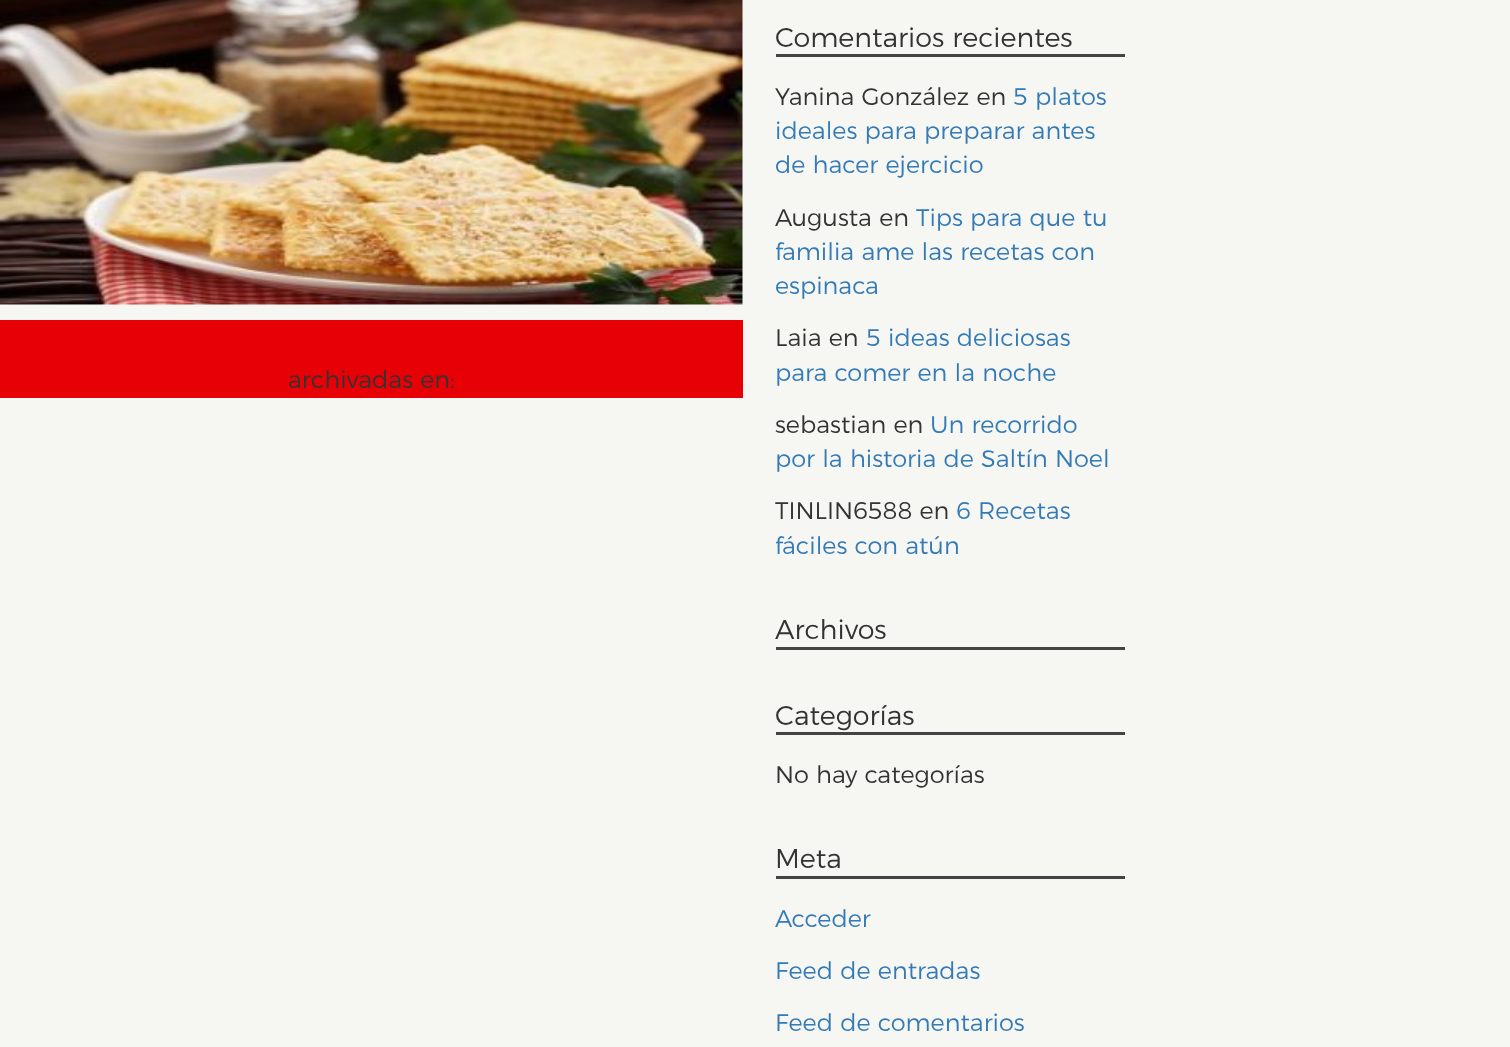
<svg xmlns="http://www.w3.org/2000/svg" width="1510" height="1047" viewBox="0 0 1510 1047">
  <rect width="100%" height="100%" fill="#f6f7f2"/>
  <image x="0" y="0" width="743" height="305" href="img/1.png"/>
  <path d="M0 320h743v78H0z" fill="#e70106"/>
  <path d="M776 54h349v3H776z" fill="#444"/>
  <path d="M776 647h349v3H776z" fill="#444"/>
  <path d="M776 732h349v3H776z" fill="#444"/>
  <path d="M776 876h349v3H776z" fill="#444"/>
  <text x="288" y="388" font-family="Montserrat" font-size="24" font-weight="300" fill="#333">archivadas en:</text>
  <text x="775" y="47" font-family="Montserrat" font-size="27" font-weight="300" fill="#333">Comentarios recientes</text>
  <text x="775" y="105" font-family="Montserrat" font-size="24" font-weight="300" fill="#333">Yanina González en</text>
  <g font-family="Montserrat" font-size="24" font-weight="300" fill="#337ab7">
    <text x="1013" y="105">5 platos</text>
    <text x="775" y="139">ideales para preparar antes</text>
    <text x="775" y="173">de hacer ejercicio</text>
  </g>
  <text x="775" y="226" font-family="Montserrat" font-size="24" font-weight="300" fill="#333">Augusta en</text>
  <g font-family="Montserrat" font-size="24" font-weight="300" fill="#337ab7">
    <text x="916" y="226">Tips para que tu</text>
    <text x="775" y="260">familia ame las recetas con</text>
    <text x="775" y="294">espinaca</text>
  </g>
  <text x="775" y="346" font-family="Montserrat" font-size="24" font-weight="300" fill="#333">Laia en</text>
  <g font-family="Montserrat" font-size="24" font-weight="300" fill="#337ab7">
    <text x="866" y="346">5 ideas deliciosas</text>
    <text x="775" y="381">para comer en la noche</text>
  </g>
  <text x="775" y="433" font-family="Montserrat" font-size="24" font-weight="300" fill="#333">sebastian en</text>
  <g font-family="Montserrat" font-size="24" font-weight="300" fill="#337ab7">
    <text x="930" y="433">Un recorrido</text>
    <text x="775" y="467">por la historia de Saltín Noel</text>
  </g>
  <text x="775" y="519" font-family="Montserrat" font-size="24" font-weight="300" fill="#333">TINLIN6588 en</text>
  <g font-family="Montserrat" font-size="24" font-weight="300" fill="#337ab7">
    <text x="956" y="519">6 Recetas</text>
    <text x="775" y="554">fáciles con atún</text>
  </g>
  <g font-family="Montserrat" font-size="27" font-weight="300" fill="#333">
    <text x="775" y="639">Archivos</text>
    <text x="775" y="725">Categorías</text>
  </g>
  <text x="775" y="783" font-family="Montserrat" font-size="24" font-weight="300" fill="#333">No hay categorías</text>
  <text x="775" y="868" font-family="Montserrat" font-size="27" font-weight="300" fill="#333">Meta</text>
  <g font-family="Montserrat" font-size="24" font-weight="300" fill="#337ab7">
    <text x="775" y="927">Acceder</text>
    <text x="775" y="979">Feed de entradas</text>
    <text x="775" y="1031">Feed de comentarios</text>
  </g>
</svg>
